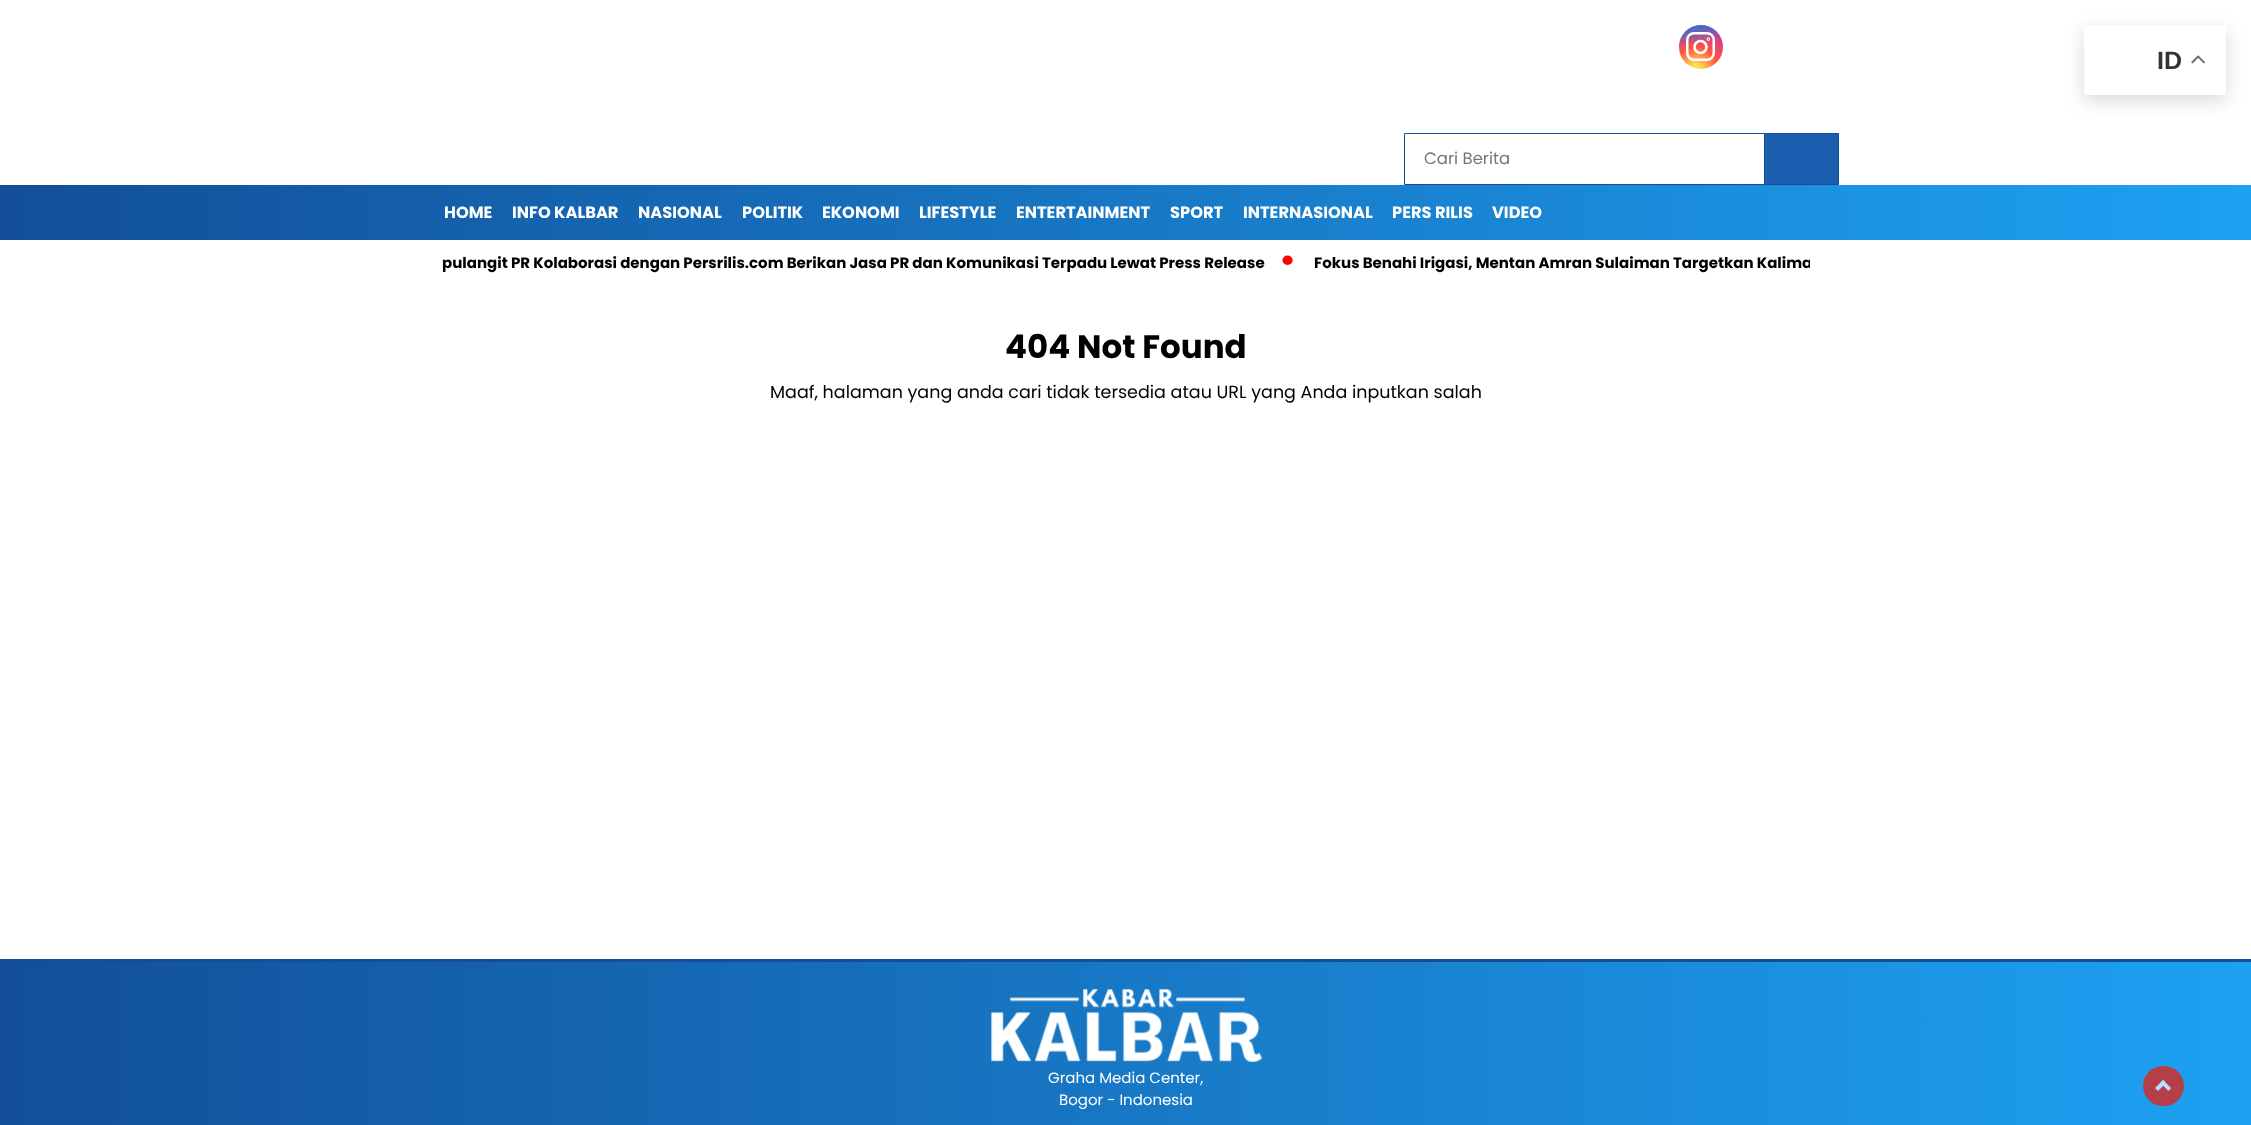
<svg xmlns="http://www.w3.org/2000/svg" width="2251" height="1125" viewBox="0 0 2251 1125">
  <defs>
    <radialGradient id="g1" gradientUnits="userSpaceOnUse" cx="1696" cy="69" r="44"><stop offset="0.1" stop-color="#fd5"/><stop offset="0.5" stop-color="#ff543e"/><stop offset="1" stop-color="#c837ab"/></radialGradient>
    <linearGradient id="g2" gradientUnits="userSpaceOnUse" x1="1679" y1="25" x2="1688" y2="69"><stop offset="0.1" stop-color="#3771c8"/><stop offset="0.5" stop-color="#3771c8" stop-opacity="0"/></linearGradient>
    <linearGradient id="g3" gradientUnits="userSpaceOnUse" x1="0" y1="213" x2="2251" y2="212"><stop offset="0" stop-color="#124f98"/><stop offset="1" stop-color="#1da1f2"/></linearGradient>
    <linearGradient id="g4" gradientUnits="userSpaceOnUse" x1="0" y1="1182" x2="2251" y2="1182"><stop offset="0" stop-color="#124f98"/><stop offset="1" stop-color="#1da1f2"/></linearGradient>
    <clipPath id="clip1"><path d="M441 240h1369v44H441z"/></clipPath>
  </defs>
  <rect width="100%" height="100%" fill="#fff"/>
  <rect x="2084" y="31" width="142" height="70" rx="2.5" fill="#00000026" filter="blur(9.5px)"/>
  <rect x="2084" y="25" width="142" height="70" rx="2.5" fill="#fff"/>
  <image x="2191" y="55" width="14" height="9" href="img/1.png"/>
  <circle cx="1701" cy="47" r="22" fill="url(#g1)"/>
  <circle cx="1701" cy="47" r="22" fill="url(#g2)"/>
  <rect x="1687.25" y="33.25" width="26.5" height="26.5" rx="6.75" fill="none" stroke="#fff" stroke-width="2.5"/>
  <circle cx="1700.5" cy="47" r="6" fill="none" stroke="#fff" stroke-width="2.6"/>
  <circle cx="1708.4" cy="39.1" r="0.5" fill="none" stroke="#fff" stroke-width="2.6"/>
  <path d="M1404.5 133.5h360v51H1404.5z" fill="none" stroke="#124f98"/>
  <path d="M1764.5 133.5h74v51H1764.5z" fill="#1b5daf" stroke="#124f98"/>
  <path d="M0 185h2251v55H0z" fill="url(#g3)"/>
  <path d="M0 962h2251v163H0z" fill="url(#g4)"/>
  <path d="M0 959h2251v3H0z" fill="#124f98"/>
  <image x="991" y="989" width="272" height="73" href="img/2.png"/>
  <rect x="2143" y="1066" width="41" height="40" rx="20" fill="#b43f48"/>
  <path d="M2158 1091L2155 1088L2163 1080L2166 1083Z" fill="#bbe2fa"/>
  <path d="M2168.5 1091L2160.5 1083L2163 1080L2171 1088Z" fill="#bbe2fa"/>
  <text x="2157" y="69" font-family="Liberation Sans" font-size="25" font-weight="bold" fill="#333">ID</text>
  <text x="1424" y="164" font-family="Poppins" font-size="16.5" fill="#757575">Cari Berita</text>
  <g font-family="Poppins" font-size="16.25" font-weight="bold" fill="#fff">
    <text x="444" y="218">HOME</text>
    <text x="512" y="218">INFO KALBAR</text>
    <text x="638" y="218">NASIONAL</text>
    <text x="742" y="218">POLITIK</text>
    <text x="822" y="218">EKONOMI</text>
    <text x="919" y="218">LIFESTYLE</text>
    <text x="1016" y="218">ENTERTAINMENT</text>
    <text x="1170" y="218">SPORT</text>
    <text x="1243" y="218">INTERNASIONAL</text>
    <text x="1392" y="218">PERS RILIS</text>
    <text x="1492" y="218">VIDEO</text>
  </g>
  <text x="442" y="268" font-family="Poppins" font-size="15" font-weight="bold" fill="#000">pulangit PR Kolaborasi dengan Persrilis.com Berikan Jasa PR dan Komunikasi Terpadu Lewat Press Release</text>
  <text x="1280" y="276" font-family="Poppins" font-size="50" font-weight="bold" fill="#f00">·</text>
  <g clip-path="url(#clip1)">
    <text x="1314" y="268" font-family="Poppins" font-size="15" font-weight="bold" fill="#000">Fokus Benahi Irigasi, Mentan Amran Sulaiman Targetkan Kalima</text>
  </g>
  <text x="1005" y="358" font-family="Poppins" font-size="32.5" font-weight="bold" fill="#000">404 Not Found</text>
  <text x="770" y="398" font-family="Poppins" font-size="17.5" fill="#000">Maaf, halaman yang anda cari tidak tersedia atau URL yang Anda inputkan salah</text>
  <g font-family="Poppins" font-size="15" fill="#fff">
    <text x="1048" y="1083">Graha Media Center,</text>
    <text x="1059" y="1105">Bogor - Indonesia</text>
  </g>
</svg>
